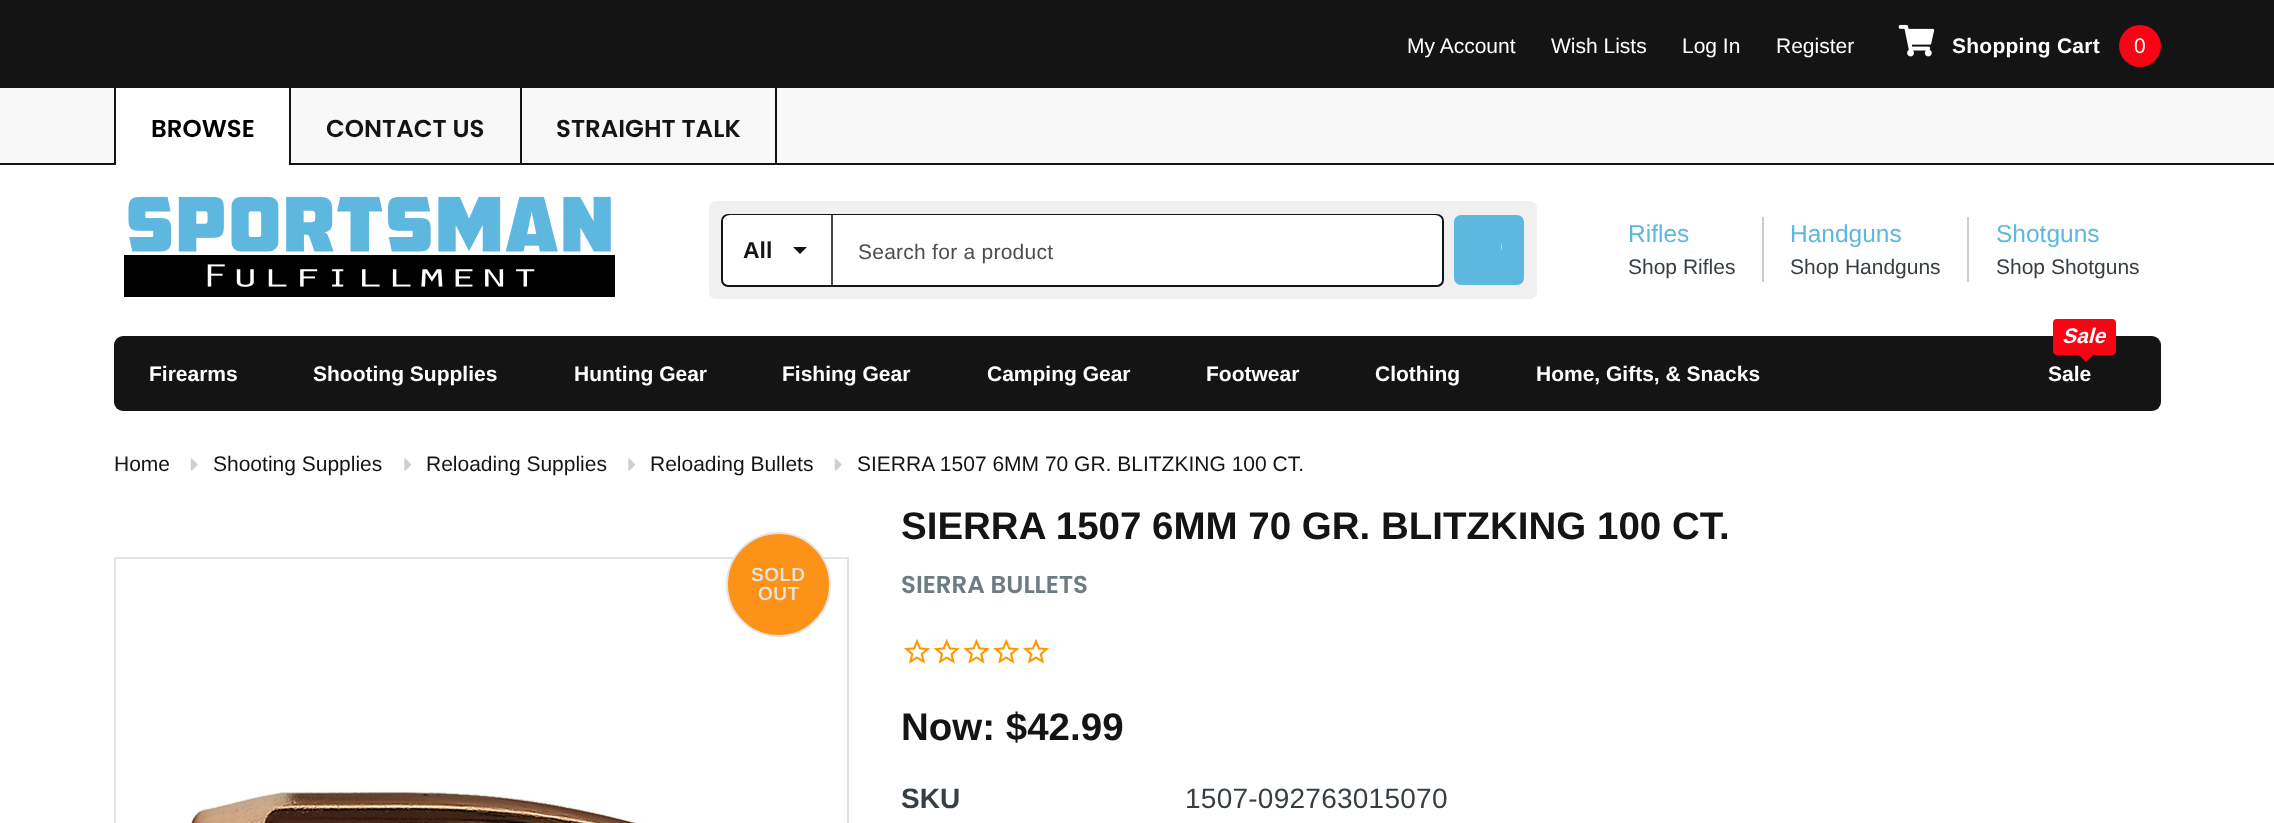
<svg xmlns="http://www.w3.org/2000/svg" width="2274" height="823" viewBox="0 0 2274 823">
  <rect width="100%" height="100%" fill="#fff"/>
  <path d="M0 0h2274v88H0z" fill="#141414"/>
  <image x="1898" y="24" width="37" height="33" href="img/1.png"/>
  <circle cx="2140" cy="46" r="21" fill="#fa0314"/>
  <path d="M0 88h2274v75H0z" fill="#f8f8f8"/>
  <path d="M289 88h2v77H289z" fill="#141414"/>
  <path d="M775 88h2v77H775z" fill="#141414"/>
  <path d="M520 88h2v77H520z" fill="#141414"/>
  <path d="M0 163h2274v2H0z" fill="#141414"/>
  <path d="M116 88h173v77H116z" fill="#fff"/>
  <path d="M114 88h2v77H114z" fill="#141414"/>
  <image x="124" y="196" width="491" height="101" href="img/2.png"/>
  <rect x="709" y="201" width="828" height="98" rx="7" fill="#f0f0f0"/>
  <rect x="722" y="215" width="721" height="71" rx="6" fill="none" stroke="#141414" stroke-width="2"/>
  <path d="M730 215H833V285H730C726 285 723 282 723 278V222C723 218 726 215 730 215Z" fill="#fff"/>
  <path d="M831 215h2v70H831z" fill="#484848"/>
  <path d="M793 247H807L800 254Z" fill="#141414"/>
  <path d="M833 215H1435C1439 215 1442 218 1442 222V278C1442 282 1439 285 1435 285H833Z" fill="#fff"/>
  <rect x="1455" y="216" width="68" height="68" rx="6" fill="#5eb7df" stroke="#5eb7df" stroke-width="2"/>
  <image x="1501" y="243" width="1" height="8" href="img/3.png"/>
  <path d="M1762 217h2v65H1762z" fill="#ccc"/>
  <path d="M1967 217h2v65H1967z" fill="#ccc"/>
  <rect x="114" y="336" width="2047" height="75" rx="9" fill="#141414"/>
  <rect x="2053" y="319" width="63" height="36" rx="4" fill="#fa0314"/>
  <path d="M2079 355H2093L2086 362Z" fill="#fa0314"/>
  <image x="190" y="458" width="8" height="13" href="img/4.png"/>
  <image x="404" y="458" width="7" height="13" href="img/5.png"/>
  <image x="628" y="458" width="7" height="13" href="img/5.png"/>
  <image x="834" y="458" width="8" height="13" href="img/4.png"/>
  <path d="M115 558h733v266H115z" fill="none" stroke="#e4e4e4" stroke-width="2"/>
  <image x="191" y="790" width="454" height="33" href="img/6.png"/>
  <circle cx="778.5" cy="584.5" r="51.5" fill="#fc9217" stroke="#e4e4e4" stroke-width="2"/>
  <image x="904" y="639" width="26" height="25" href="img/7.png"/>
  <image x="933" y="638" width="27" height="26" href="img/8.png"/>
  <image x="963" y="638" width="27" height="26" href="img/9.png"/>
  <image x="993" y="638" width="27" height="26" href="img/10.png"/>
  <image x="1023" y="639" width="26" height="25" href="img/7.png"/>
  <g font-family="Arimo" font-size="21" fill="#fff">
    <text x="1407" y="53">My Account</text>
    <text x="1551" y="53">Wish Lists</text>
    <text x="1682" y="53">Log In</text>
    <text x="1776" y="53">Register</text>
  </g>
  <text x="1952" y="53" font-family="Arimo" font-size="21" font-weight="bold" letter-spacing="0.25" fill="#fff">Shopping Cart</text>
  <text x="2134" y="53" font-family="Arimo" font-size="21" fill="#fff">0</text>
  <text x="151" y="137" font-family="Poppins" font-size="24.5" font-weight="600" fill="#000">BROWSE</text>
  <g font-family="Poppins" font-size="24.5" font-weight="600" fill="#141414">
    <text x="326" y="137">CONTACT US</text>
    <text x="556" y="137">STRAIGHT TALK</text>
  </g>
  <text x="743" y="258" font-family="Arimo" font-size="23" font-weight="bold" fill="#141414">All</text>
  <text x="858" y="259" font-family="Arimo" font-size="21" letter-spacing="0.25" fill="#4d4d4d">Search for a product</text>
  <text x="1628" y="242" font-family="Arimo" font-size="24.5" fill="#5eb7df">Rifles</text>
  <text x="1628" y="274" font-family="Arimo" font-size="21" fill="#363e42">Shop Rifles</text>
  <text x="1790" y="242" font-family="Arimo" font-size="24.5" fill="#5eb7df">Handguns</text>
  <text x="1790" y="274" font-family="Arimo" font-size="21" fill="#363e42">Shop Handguns</text>
  <text x="1996" y="242" font-family="Arimo" font-size="24.5" fill="#5eb7df">Shotguns</text>
  <text x="1996" y="274" font-family="Arimo" font-size="21" fill="#363e42">Shop Shotguns</text>
  <g font-family="Arimo" font-size="21" font-weight="bold" fill="#fff">
    <text x="149" y="381">Firearms</text>
    <text x="313" y="381">Shooting Supplies</text>
    <text x="574" y="381">Hunting Gear</text>
    <text x="782" y="381">Fishing Gear</text>
    <text x="987" y="381">Camping Gear</text>
    <text x="1206" y="381">Footwear</text>
    <text x="1375" y="381">Clothing</text>
    <text x="1536" y="381">Home, Gifts, &amp; Snacks</text>
  </g>
  <text x="2062" y="343" font-family="Arimo" font-size="21" font-weight="bold" font-style="italic" fill="#fff">Sale</text>
  <text x="2048" y="381" font-family="Arimo" font-size="21" font-weight="bold" fill="#fff">Sale</text>
  <g font-family="Arimo" font-size="21" fill="#141414">
    <text x="114" y="471">Home</text>
    <text x="213" y="471">Shooting Supplies</text>
    <text x="426" y="471">Reloading Supplies</text>
    <text x="650" y="471">Reloading Bullets</text>
    <text x="857" y="471">SIERRA 1507 6MM 70 GR. BLITZKING 100 CT.</text>
  </g>
  <g font-family="Arimo" font-size="19" font-weight="600" letter-spacing="0.5" fill="#e4e4e4">
    <text x="751" y="581">SOLD</text>
    <text x="758" y="600">OUT</text>
  </g>
  <text x="901" y="539" font-family="Arimo" font-size="38.5" font-weight="bold" fill="#141414">SIERRA 1507 6MM 70 GR. BLITZKING 100 CT.</text>
  <text x="901" y="593" font-family="Poppins" font-size="24.5" font-weight="600" fill="#6d7c83">SIERRA BULLETS</text>
  <text x="901" y="740" font-family="Arimo" font-size="38.5" font-weight="bold" fill="#141414">Now: $42.99</text>
  <text x="901" y="808" font-family="Arimo" font-size="28" font-weight="bold" fill="#363e42">SKU</text>
  <text x="1185" y="808" font-family="Arimo" font-size="28" letter-spacing="0.25" fill="#363e42">1507-092763015070</text>
</svg>
